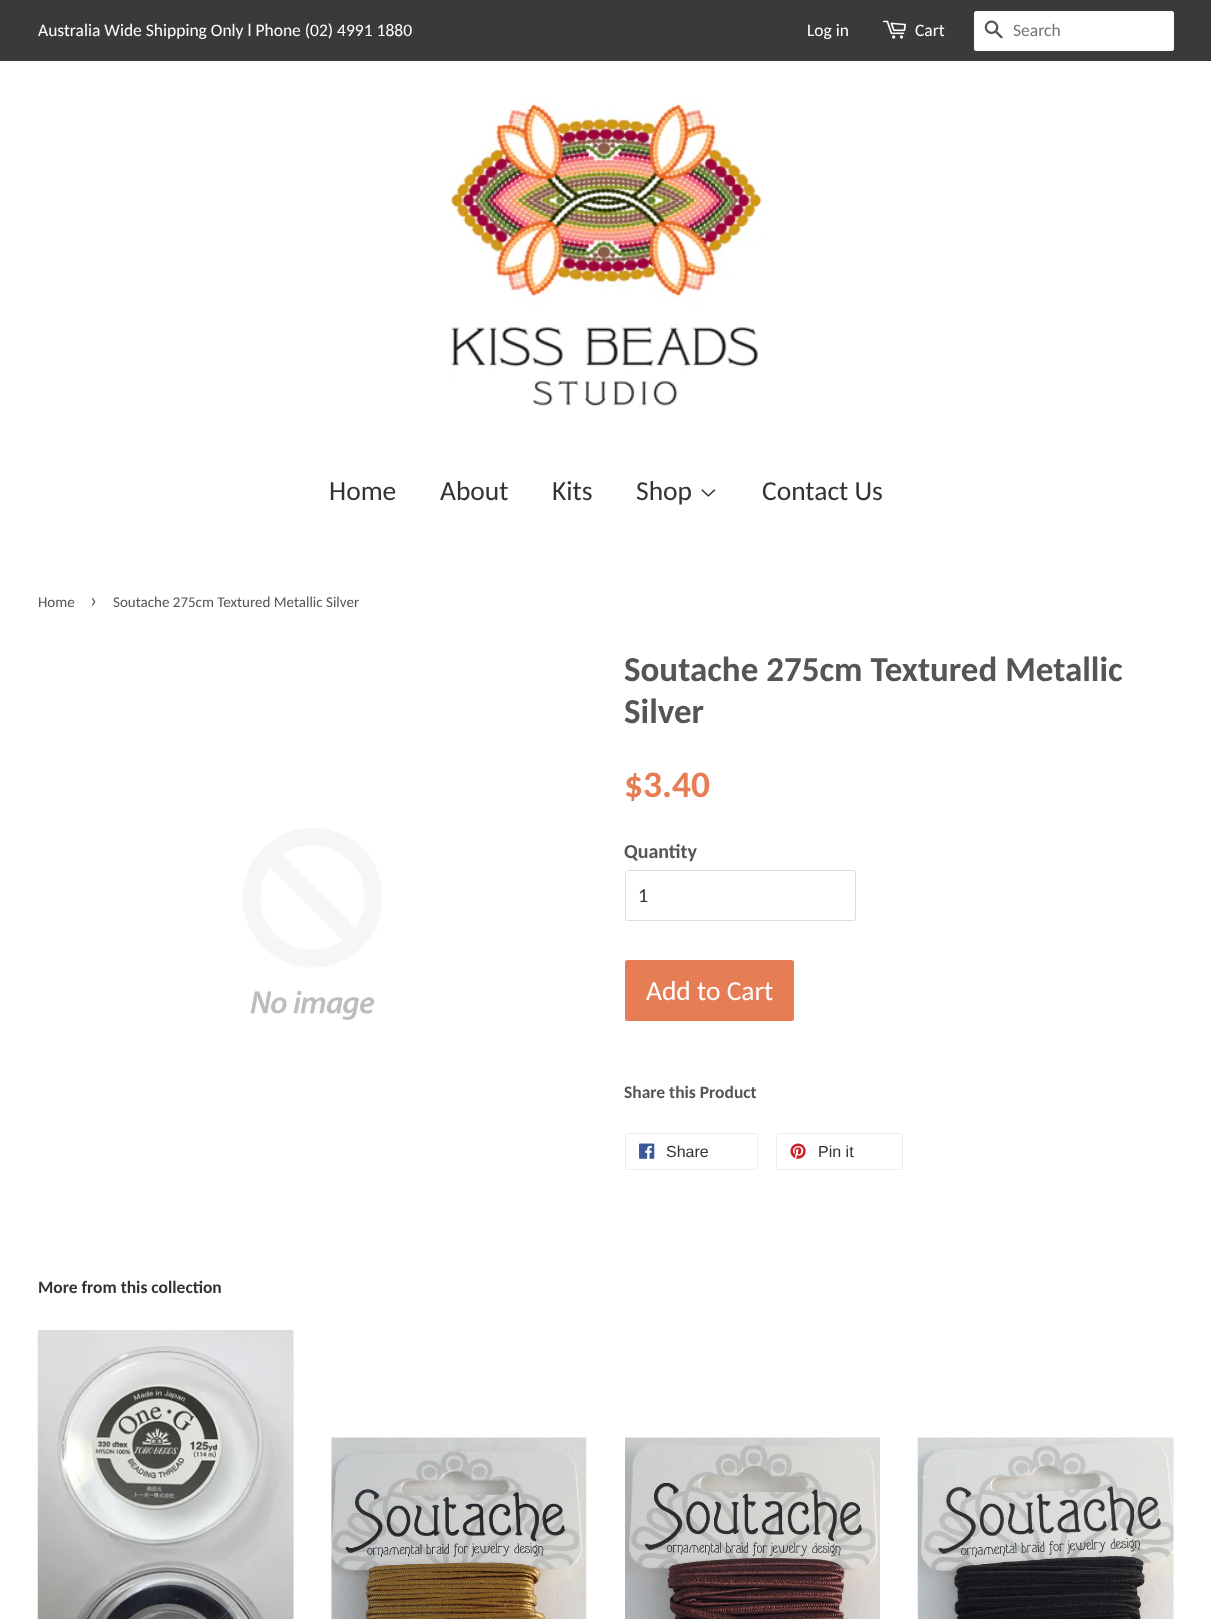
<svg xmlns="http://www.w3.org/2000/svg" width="1211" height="1619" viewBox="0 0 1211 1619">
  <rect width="100%" height="100%" fill="#fff"/>
  <path d="M0 0h1211v61H0z" fill="#3a3a3a"/>
  <image x="883" y="20" width="23" height="19" href="img/1.png"/>
  <rect x="974" y="11" width="200" height="40" rx="2.5" fill="#fff"/>
  <image x="984" y="20" width="19" height="19" href="img/2.png"/>
  <image x="450" y="99" width="313" height="308" href="img/3.png"/>
  <image x="701" y="489" width="15" height="8" href="img/4.png"/>
  <image x="242" y="828" width="140" height="192" href="img/5.png"/>
  <rect x="625.5" y="870.5" width="230" height="50" rx="2" fill="none" stroke="#ddd"/>
  <rect x="625" y="960" width="169" height="61" rx="2.5" fill="#e77d54"/>
  <rect x="625.5" y="1133.5" width="132" height="36" rx="2" fill="none" stroke="#ececec"/>
  <image x="639" y="1143" width="16" height="16" href="img/6.png"/>
  <rect x="776.5" y="1133.5" width="126" height="36" rx="2" fill="none" stroke="#ececec"/>
  <image x="790" y="1143" width="16" height="16" href="img/7.png"/>
  <image x="37" y="1330" width="257" height="289" href="img/8.png"/>
  <image x="331" y="1437" width="256" height="182" href="img/9.png"/>
  <image x="625" y="1437" width="255" height="182" href="img/10.png"/>
  <image x="917" y="1437" width="257" height="182" href="img/11.png"/>
  <g font-family="Carlito" font-size="17.5" fill="#fff">
    <text x="38" y="36">Australia Wide Shipping Only l Phone (02) 4991 1880</text>
    <text x="807" y="36">Log in</text>
    <text x="915" y="36">Cart</text>
  </g>
  <text x="1013" y="36" font-family="Carlito" font-size="17.5" fill="#757575">Search</text>
  <g font-family="Carlito" font-size="27.5" fill="#333">
    <text x="329" y="500">Home</text>
    <text x="440" y="500">About</text>
    <text x="552" y="500">Kits</text>
    <text x="636" y="500">Shop</text>
    <text x="762" y="500">Contact Us</text>
  </g>
  <text x="38" y="607" font-family="Carlito" font-size="15" fill="#555">Home</text>
  <text x="90" y="607" font-family="Carlito" font-size="21" fill="#555">›</text>
  <text x="113" y="607" font-family="Carlito" font-size="15" fill="#555">Soutache 275cm Textured Metallic Silver</text>
  <g font-family="Carlito" font-size="35" font-weight="bold" fill="#555">
    <text x="624" y="681">Soutache 275cm Textured Metallic</text>
    <text x="624" y="723">Silver</text>
  </g>
  <text x="624" y="797" font-family="Carlito" font-size="37.5" font-weight="bold" fill="#e77d54">$3.40</text>
  <text x="624" y="858" font-family="Carlito" font-size="20" font-weight="bold" fill="#555">Quantity</text>
  <text x="638" y="902" font-family="Carlito" font-size="20" fill="#333">1</text>
  <text x="646" y="1000" font-family="Carlito" font-size="27.5" fill="#fff">Add to Cart</text>
  <text x="624" y="1098" font-family="Carlito" font-size="17.5" font-weight="bold" fill="#555">Share this Product</text>
  <g font-family="Liberation Sans" font-size="16" fill="#333">
    <text x="666" y="1157">Share</text>
    <text x="818" y="1157">Pin it</text>
  </g>
  <text x="38" y="1293" font-family="Carlito" font-size="17.5" font-weight="bold" fill="#333">More from this collection</text>
</svg>
